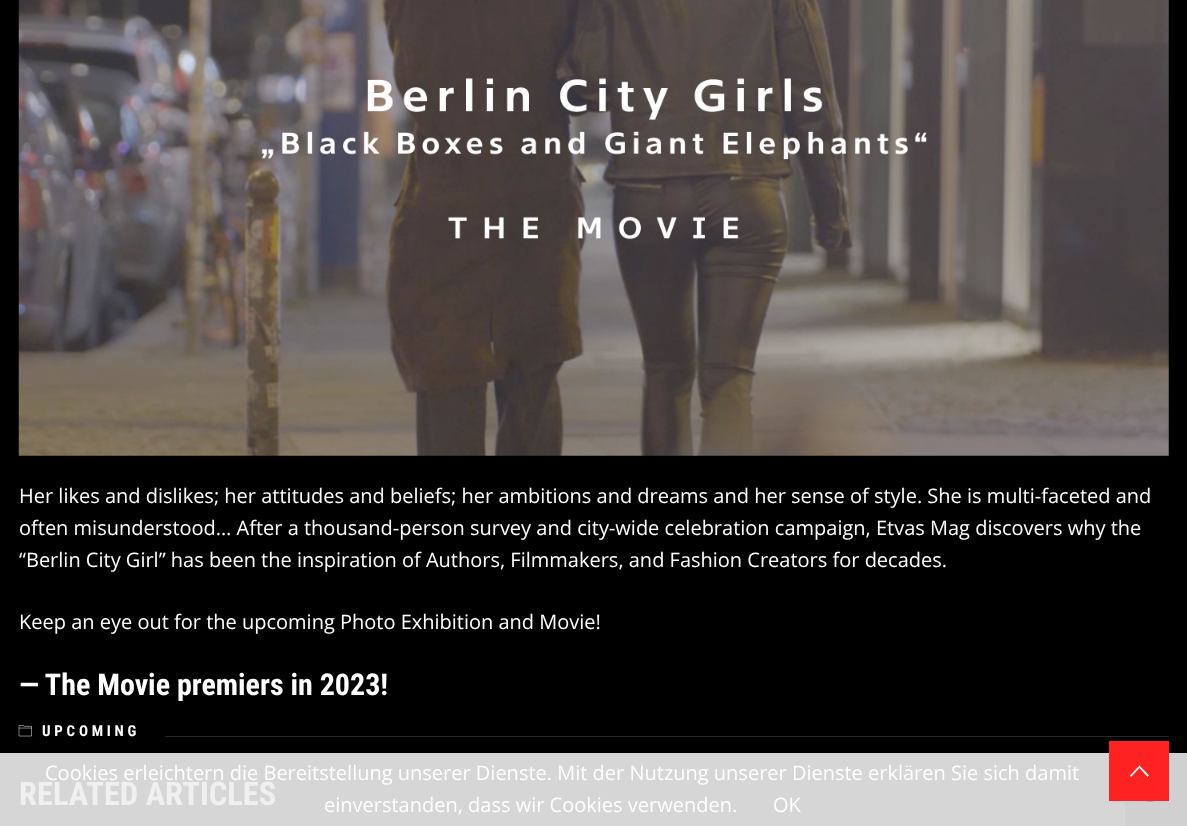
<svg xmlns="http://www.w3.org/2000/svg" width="1187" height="826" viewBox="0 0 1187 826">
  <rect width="100%" height="100%" fill="#000"/>
  <path d="M0 753h1125v73H0z" fill="#d6d6d6"/>
  <image x="18" y="0" width="1151" height="456" href="img/1.png"/>
  <image x="18" y="725" width="14" height="12" href="img/2.png"/>
  <path d="M165 736h1004v1H165z" fill="#272727"/>
  <path d="M1125 753h62v73H1125z" fill="#d0d0d0"/>
  <image x="1146" y="801" width="9" height="1" href="img/3.png"/>
  <path d="M1109 741h60v60H1109z" fill="#f22"/>
  <path d="M1147.5 777L1139.5 768L1131 777L1130 775.5L1139.5 765.5L1149 775.5Z" fill="#fff"/>
  <g font-family="Open Sans" font-size="20" fill="#fff">
    <text x="19" y="503">Her likes and dislikes; her attitudes and beliefs; her ambitions and dreams and her sense of style. She is multi-faceted and</text>
    <text x="19" y="535">often misunderstood… After a thousand-person survey and city-wide celebration campaign, Etvas Mag discovers why the</text>
    <text x="19" y="567">“Berlin City Girl” has been the inspiration of Authors, Filmmakers, and Fashion Creators for decades.</text>
    <text x="19" y="629">Keep an eye out for the upcoming Photo Exhibition and Movie!</text>
  </g>
  <text x="19" y="695" font-family="Roboto Condensed" font-size="30" font-weight="bold" fill="#fff">— The Movie premiers in 2023!</text>
  <text x="42" y="736" font-family="Roboto Condensed" font-size="15" font-weight="bold" letter-spacing="3.75" fill="#fff">UPCOMING</text>
  <text x="19" y="805" font-family="Roboto Condensed" font-size="32.5" font-weight="bold" fill="#f0f0f0">RELATED ARTICLES</text>
  <g font-family="Open Sans" font-size="20" fill="#fff">
    <text x="45" y="780">Cookies erleichtern die Bereitstellung unserer Dienste. Mit der Nutzung unserer Dienste erklären Sie sich damit</text>
    <text x="324" y="812">einverstanden, dass wir Cookies verwenden.</text>
    <text x="773" y="812">OK</text>
  </g>
</svg>
